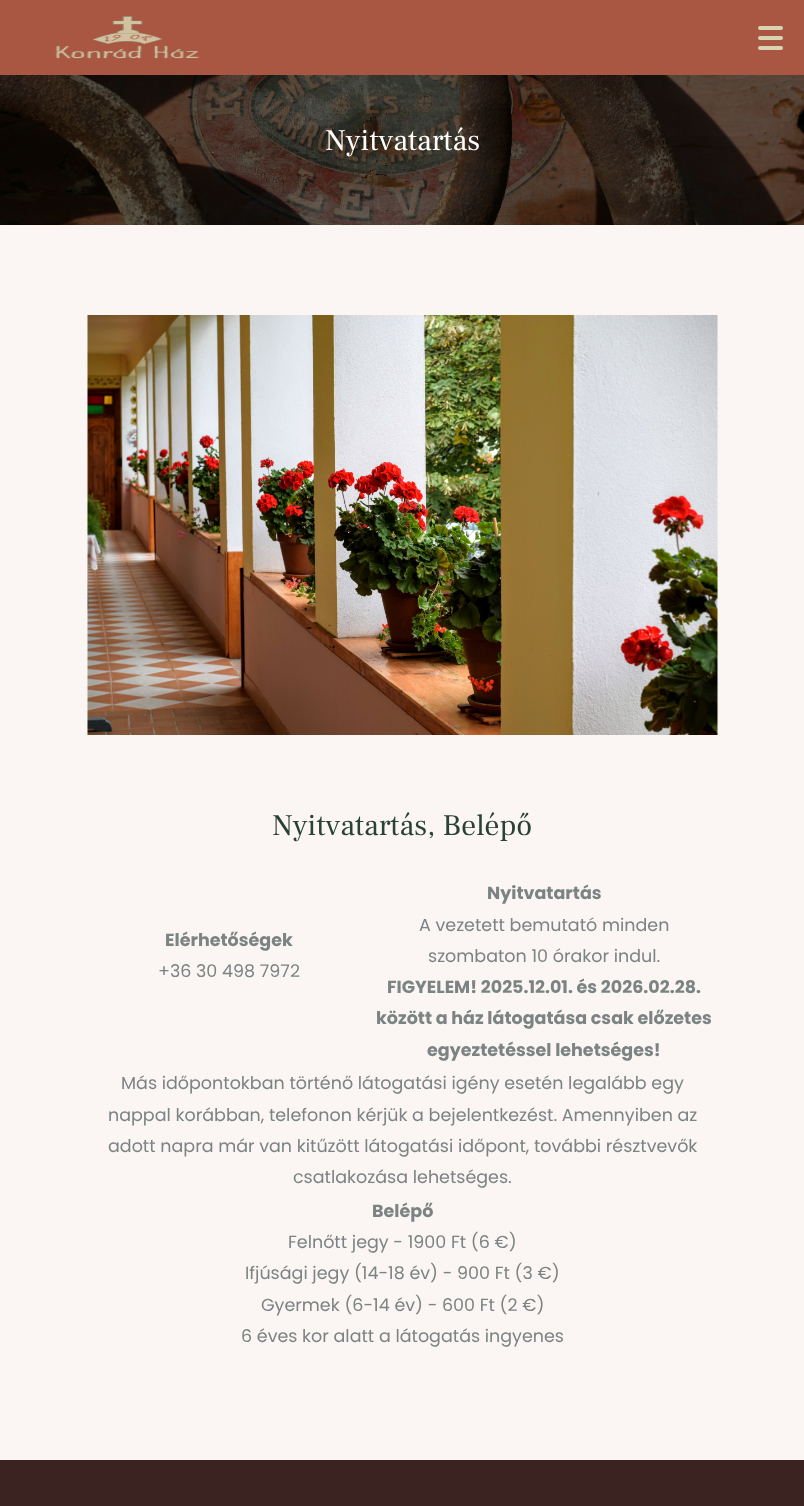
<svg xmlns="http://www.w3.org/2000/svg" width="804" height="1506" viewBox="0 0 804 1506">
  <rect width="100%" height="100%" fill="#fbf6f3"/>
  <path d="M0 0h804v75H0z" fill="#a95742"/>
  <image x="55" y="16" width="144" height="43" href="img/1.png"/>
  <rect x="758" y="36" width="25" height="4" rx="2" fill="#d8d4b1"/>
  <rect x="758" y="26" width="25" height="4" rx="2" fill="#d8d4b1"/>
  <rect x="758" y="46" width="25" height="4" rx="2" fill="#d8d4b1"/>
  <image x="0" y="75" width="804" height="150" href="img/2.png"/>
  <image x="87" y="315" width="631" height="420" href="img/3.png"/>
  <path d="M0 1460h804v46H0z" fill="#3b2321"/>
  <text x="325" y="150" font-family="Frank Ruhl Libre" font-size="30" fill="#fff">Nyitvatartás</text>
  <text x="272" y="835" font-family="Frank Ruhl Libre" font-size="30" fill="#294138">Nyitvatartás, Belépő</text>
  <text x="165" y="946" font-family="Poppins" font-size="17.5" font-weight="bold" fill="#7b8383">Elérhetőségek</text>
  <text x="158" y="977" font-family="Poppins" font-size="17.5" fill="#7b8383">+36 30 498 7972</text>
  <text x="487" y="899" font-family="Poppins" font-size="17.5" font-weight="bold" fill="#7b8383">Nyitvatartás</text>
  <g font-family="Poppins" font-size="17.5" fill="#7b8383">
    <text x="419" y="931">A vezetett bemutató minden</text>
    <text x="428" y="962">szombaton 10 órakor indul.</text>
  </g>
  <g font-family="Poppins" font-size="17.5" font-weight="bold" fill="#7b8383">
    <text x="387" y="993">FIGYELEM! 2025.12.01. és 2026.02.28.</text>
    <text x="376" y="1024">között a ház látogatása csak előzetes</text>
    <text x="427" y="1056">egyeztetéssel lehetséges!</text>
  </g>
  <g font-family="Poppins" font-size="17.5" fill="#7b8383">
    <text x="121" y="1089">Más időpontokban történő látogatási igény esetén legalább egy</text>
    <text x="108" y="1121">nappal korábban, telefonon kérjük a bejelentkezést. Amennyiben az</text>
    <text x="108" y="1152">adott napra már van kitűzött látogatási időpont, további résztvevők</text>
    <text x="293" y="1183">csatlakozása lehetséges.</text>
  </g>
  <text x="372" y="1217" font-family="Poppins" font-size="17.5" font-weight="bold" fill="#7b8383">Belépő</text>
  <g font-family="Poppins" font-size="17.5" fill="#7b8383">
    <text x="288" y="1248">Felnőtt jegy - 1900 Ft (6 €)</text>
    <text x="245" y="1279">Ifjúsági jegy (14-18 év) - 900 Ft (3 €)</text>
    <text x="261" y="1311">Gyermek (6-14 év) - 600 Ft (2 €)</text>
    <text x="241" y="1342">6 éves kor alatt a látogatás ingyenes</text>
  </g>
</svg>
